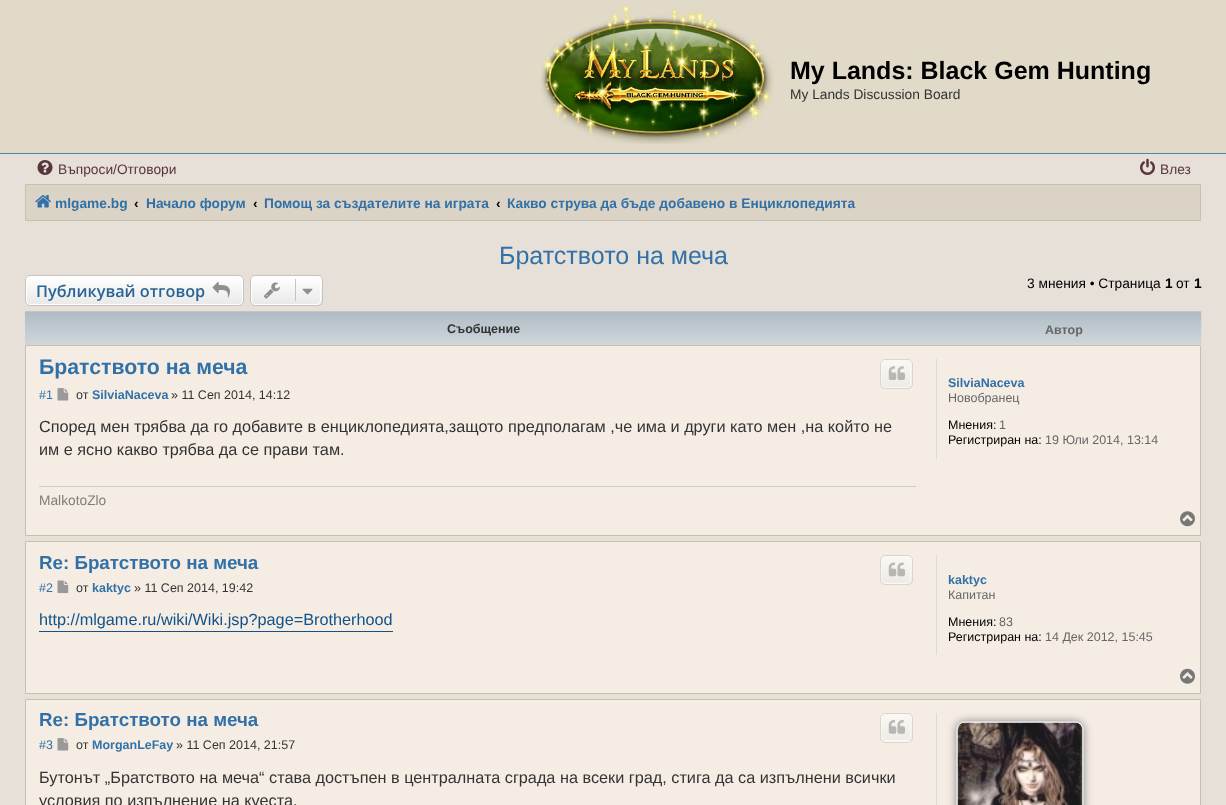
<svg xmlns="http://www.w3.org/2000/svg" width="1226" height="805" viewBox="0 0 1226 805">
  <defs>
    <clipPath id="clip1"><rect x="25" y="275" width="219" height="31" rx="5"/></clipPath>
    <linearGradient id="g1" gradientUnits="userSpaceOnUse" x1="134" y1="276" x2="134" y2="305"><stop offset="0" stop-color="#fff"/><stop offset="1" stop-color="#e9e9e9"/></linearGradient>
    <clipPath id="clip2"><rect x="250" y="275" width="73" height="31" rx="5"/></clipPath>
    <linearGradient id="g2" gradientUnits="userSpaceOnUse" x1="286" y1="276" x2="286" y2="305"><stop offset="0" stop-color="#fff"/><stop offset="1" stop-color="#e9e9e9"/></linearGradient>
    <clipPath id="clip3"><rect x="880" y="359" width="33" height="30" rx="5"/></clipPath>
    <linearGradient id="g3" gradientUnits="userSpaceOnUse" x1="896" y1="360" x2="896" y2="388"><stop offset="0" stop-color="#fbf8f4"/><stop offset="1" stop-color="#eeebe7"/></linearGradient>
    <clipPath id="clip4"><rect x="880" y="555" width="33" height="30" rx="5"/></clipPath>
    <linearGradient id="g4" gradientUnits="userSpaceOnUse" x1="896" y1="556" x2="896" y2="584"><stop offset="0" stop-color="#fbf8f4"/><stop offset="1" stop-color="#eeebe7"/></linearGradient>
    <clipPath id="clip5"><rect x="880" y="713" width="33" height="30" rx="5"/></clipPath>
    <linearGradient id="g5" gradientUnits="userSpaceOnUse" x1="896" y1="714" x2="896" y2="741"><stop offset="0" stop-color="#fbf8f4"/><stop offset="1" stop-color="#eeebe7"/></linearGradient>
    <linearGradient id="g6" gradientUnits="userSpaceOnUse" x1="896" y1="741" x2="896" y2="769"><stop offset="0" stop-color="#fbf8f4"/><stop offset="1" stop-color="#eeebe7"/></linearGradient>
  </defs>
  <rect width="100%" height="100%" fill="#e7e0d8"/>
  <path d="M0 0h1226v153H0z" fill="#e1dac9"/>
  <path d="M0 153h1226v1H0z" fill="#4787a7"/>
  <image x="541" y="6" width="233" height="138" href="img/1.png"/>
  <image x="37" y="160" width="16" height="15" href="img/2.png"/>
  <image x="1140" y="158" width="15" height="17" href="img/3.png"/>
  <path d="M25.5 184.5h1175v36H25.5z" fill="#dbd4c6" stroke="#c5c2ab"/>
  <image x="35" y="195" width="16" height="13" href="img/4.png"/>
  <g clip-path="url(#clip1)">
    <path d="M25 276h219v29H25z" fill="url(#g1)"/>
  </g>
  <rect x="26.5" y="276.5" width="216" height="28" rx="3.5" fill="none" stroke="#fff"/>
  <rect x="25.5" y="275.5" width="218" height="30" rx="4.5" fill="none" stroke="#c7c3bf"/>
  <image x="212" y="282" width="18" height="16" href="img/5.png"/>
  <g clip-path="url(#clip2)">
    <path d="M250 276h73v29H250z" fill="url(#g2)"/>
  </g>
  <rect x="251.5" y="276.5" width="69" height="28" rx="3.5" fill="none" stroke="#fff"/>
  <rect x="250.5" y="275.5" width="72" height="30" rx="4.5" fill="none" stroke="#c7c3bf"/>
  <image x="264" y="282" width="16" height="17" href="img/6.png"/>
  <path d="M295 279h1v22H295z" fill="#c7c3bf"/>
  <image x="302" y="288" width="11" height="7" href="img/7.png"/>
  <image x="25" y="311" width="1177" height="34" href="img/8.png"/>
  <path d="M25.5 345.5h1175v190H25.5z" fill="#f5ede4" stroke="#c5c2ab"/>
  <g clip-path="url(#clip3)">
    <path d="M880 360h33v28H880z" fill="url(#g3)"/>
  </g>
  <rect x="881.5" y="360.5" width="29" height="27" rx="3.5" fill="none" stroke="#fbf8f4"/>
  <rect x="880.5" y="359.5" width="32" height="29" rx="4.5" fill="none" stroke="#d9d4ce"/>
  <image x="888" y="366" width="17" height="14" href="img/9.png"/>
  <image x="57" y="388" width="12" height="13" href="img/10.png"/>
  <path d="M39 486h877v1H39z" fill="#c7cdd0"/>
  <path d="M936 359h1v100H936z" fill="#d5dbe0"/>
  <image x="1180" y="511" width="15" height="16" href="img/11.png"/>
  <path d="M25.5 541.5h1175v152H25.5z" fill="#f5ede4" stroke="#c5c2ab"/>
  <g clip-path="url(#clip4)">
    <path d="M880 556h33v28H880z" fill="url(#g4)"/>
  </g>
  <rect x="881.5" y="556.5" width="29" height="27" rx="3.5" fill="none" stroke="#fbf8f4"/>
  <rect x="880.5" y="555.5" width="32" height="29" rx="4.5" fill="none" stroke="#d9d4ce"/>
  <image x="888" y="562" width="17" height="15" href="img/12.png"/>
  <image x="57" y="580" width="12" height="14" href="img/13.png"/>
  <path d="M39 631h354v1H39z" fill="#105289"/>
  <path d="M936 555h1v100H936z" fill="#d5dbe0"/>
  <image x="1180" y="668" width="15" height="16" href="img/14.png"/>
  <path d="M25.5 699.5h1175v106H25.5z" fill="#f5ede4" stroke="#c5c2ab"/>
  <g clip-path="url(#clip5)">
    <path d="M880 714h33v27H880z" fill="url(#g5)"/>
    <path d="M880 741h33v2H880z" fill="url(#g6)"/>
  </g>
  <rect x="881.5" y="714.5" width="29" height="26" rx="3.5" fill="none" stroke="#fbf8f4"/>
  <rect x="880.5" y="713.5" width="32" height="29" rx="4.5" fill="none" stroke="#d9d4ce"/>
  <image x="888" y="720" width="17" height="14" href="img/15.png"/>
  <image x="57" y="738" width="12" height="13" href="img/10.png"/>
  <path d="M936 713h1v92H936z" fill="#d5dbe0"/>
  <rect x="956" y="721" width="128" height="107" rx="9" fill="#8c8b8a" filter="blur(4.5px)"/>
  <rect x="956.5" y="721.5" width="127" height="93" rx="8.5" fill="#fefdfc" stroke="#d6dbdf"/>
  <image x="957" y="722" width="126" height="83" href="img/16.png"/>
  <text x="790" y="79" font-family="Liberation Sans" font-size="25" font-weight="bold" fill="#000">My Lands: Black Gem Hunting</text>
  <text x="790" y="99" font-family="Liberation Sans" font-size="13.75" fill="#333">My Lands Discussion Board</text>
  <g font-family="Liberation Sans" font-size="13.75" fill="#57353e">
    <text x="58" y="174">Въпроси/Отговори</text>
    <text x="1160" y="174">Влез</text>
  </g>
  <text x="55" y="208" font-family="Liberation Sans" font-size="13.75" font-weight="bold" fill="#3271a7">mlgame.bg</text>
  <text x="134" y="208" font-family="Liberation Sans" font-size="13.75" font-weight="bold" fill="#000">‹</text>
  <text x="146" y="208" font-family="Liberation Sans" font-size="13.75" font-weight="bold" fill="#3271a7">Начало форум</text>
  <text x="253" y="208" font-family="Liberation Sans" font-size="13.75" font-weight="bold" fill="#000">‹</text>
  <text x="264" y="208" font-family="Liberation Sans" font-size="13.75" font-weight="bold" fill="#3271a7">Помощ за създателите на играта</text>
  <text x="496" y="208" font-family="Liberation Sans" font-size="13.75" font-weight="bold" fill="#000">‹</text>
  <text x="507" y="208" font-family="Liberation Sans" font-size="13.75" font-weight="bold" fill="#3271a7">Какво струва да бъде добавено в Енциклопедията</text>
  <text x="499" y="264" font-family="Liberation Sans" font-size="25" fill="#3271a7">Братството на меча</text>
  <text x="36" y="297" font-family="Open Sans" font-size="16.25" font-weight="600" fill="#2a6496">Публикувай отговор</text>
  <text x="1027" y="288" font-family="Liberation Sans" font-size="13.75" fill="#000">3 мнения • Страница</text>
  <text x="1165" y="288" font-family="Liberation Sans" font-size="13.75" font-weight="bold" fill="#000">1</text>
  <text x="1176" y="288" font-family="Liberation Sans" font-size="13.75" fill="#000">от</text>
  <text x="1194" y="288" font-family="Liberation Sans" font-size="13.75" font-weight="bold" fill="#000">1</text>
  <text x="447" y="333" font-family="Liberation Sans" font-size="12.5" font-weight="bold" fill="#333">Съобщение</text>
  <text x="1045" y="334" font-family="Liberation Sans" font-size="12.5" font-weight="bold" fill="#666">Автор</text>
  <text x="39" y="374" font-family="Liberation Sans" font-size="21.25" font-weight="bold" fill="#3271a7">Братството на меча</text>
  <text x="39" y="399" font-family="Liberation Sans" font-size="12.5" fill="#3271a7">#1</text>
  <text x="76" y="399" font-family="Liberation Sans" font-size="12.5" fill="#333">от</text>
  <text x="92" y="399" font-family="Liberation Sans" font-size="12.5" font-weight="bold" fill="#3271a7">SilviaNaceva</text>
  <text x="171" y="399" font-family="Liberation Sans" font-size="12.5" fill="#333">» 11 Сеп 2014, 14:12</text>
  <g font-family="Liberation Sans" font-size="16.25" fill="#333">
    <text x="39" y="432">Според мен трябва да го добавите в енциклопедията,защото предполагам ,че има и други като мен ,на който не</text>
    <text x="39" y="455">им е ясно какво трябва да се прави там.</text>
  </g>
  <text x="39" y="505" font-family="Liberation Sans" font-size="13.75" fill="#817d7a">MalkotoZlo</text>
  <text x="948" y="387" font-family="Liberation Sans" font-size="12.5" font-weight="bold" fill="#3271a7">SilviaNaceva</text>
  <text x="948" y="402" font-family="Liberation Sans" font-size="12.5" fill="#666">Новобранец</text>
  <text x="948" y="429" font-family="Liberation Sans" font-size="12.5" fill="#000">Мнения:</text>
  <text x="999" y="429" font-family="Liberation Sans" font-size="12.5" fill="#666">1</text>
  <text x="948" y="444" font-family="Liberation Sans" font-size="12.5" fill="#000">Регистриран на:</text>
  <text x="1045" y="444" font-family="Liberation Sans" font-size="12.5" fill="#666">19 Юли 2014, 13:14</text>
  <text x="39" y="569" font-family="Liberation Sans" font-size="18.75" font-weight="bold" fill="#3271a7">Re: Братството на меча</text>
  <text x="39" y="592" font-family="Liberation Sans" font-size="12.5" fill="#3271a7">#2</text>
  <text x="76" y="592" font-family="Liberation Sans" font-size="12.5" fill="#333">от</text>
  <text x="92" y="592" font-family="Liberation Sans" font-size="12.5" font-weight="bold" fill="#3271a7">kaktyc</text>
  <text x="134" y="592" font-family="Liberation Sans" font-size="12.5" fill="#333">» 11 Сеп 2014, 19:42</text>
  <text x="39" y="625" font-family="Liberation Sans" font-size="16.25" fill="#105289">http://mlgame.ru/wiki/Wiki.jsp?page=Brotherhood</text>
  <text x="948" y="584" font-family="Liberation Sans" font-size="12.5" font-weight="bold" fill="#3271a7">kaktyc</text>
  <text x="948" y="599" font-family="Liberation Sans" font-size="12.5" fill="#666">Капитан</text>
  <text x="948" y="626" font-family="Liberation Sans" font-size="12.5" fill="#000">Мнения:</text>
  <text x="999" y="626" font-family="Liberation Sans" font-size="12.5" fill="#666">83</text>
  <text x="948" y="641" font-family="Liberation Sans" font-size="12.5" fill="#000">Регистриран на:</text>
  <text x="1045" y="641" font-family="Liberation Sans" font-size="12.5" fill="#666">14 Дек 2012, 15:45</text>
  <text x="39" y="726" font-family="Liberation Sans" font-size="18.75" font-weight="bold" fill="#3271a7">Re: Братството на меча</text>
  <text x="39" y="749" font-family="Liberation Sans" font-size="12.5" fill="#3271a7">#3</text>
  <text x="76" y="749" font-family="Liberation Sans" font-size="12.5" fill="#333">от</text>
  <text x="92" y="749" font-family="Liberation Sans" font-size="12.5" font-weight="bold" fill="#3271a7">MorganLeFay</text>
  <text x="176" y="749" font-family="Liberation Sans" font-size="12.5" fill="#333">» 11 Сеп 2014, 21:57</text>
  <g font-family="Liberation Sans" font-size="16.25" fill="#333">
    <text x="39" y="783">Бутонът „Братството на меча“ става достъпен в централната сграда на всеки град, стига да са изпълнени всички</text>
    <text x="39" y="806">условия по изпълнение на куеста.</text>
  </g>
</svg>
